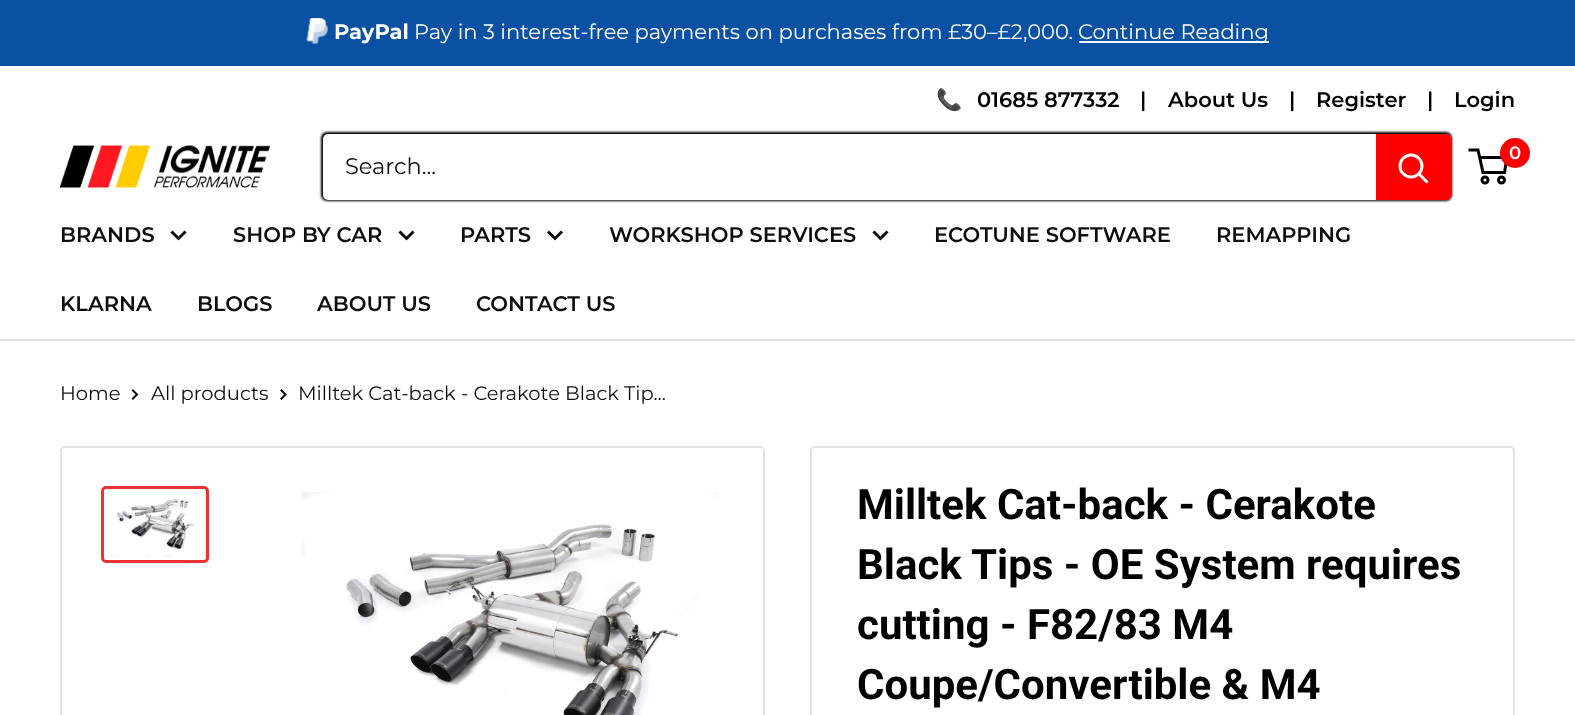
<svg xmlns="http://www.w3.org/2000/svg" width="1575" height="715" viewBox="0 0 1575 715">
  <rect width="100%" height="100%" fill="#fff"/>
  <path d="M0 0h1575v66H0z" fill="#0b51a3"/>
  <image x="306" y="18" width="23" height="27" href="img/1.png"/>
  <path d="M1079 41h190v2H1079z" fill="#fff"/>
  <image x="60" y="145" width="210" height="43" href="img/2.png"/>
  <circle cx="1485" cy="180" r="3" fill="none" stroke="#000" stroke-width="3"/>
  <circle cx="1501.5" cy="180" r="3" fill="none" stroke="#000" stroke-width="3"/>
  <path d="M1479.5 157.5H1507L1504.5 172.5H1483L1478 150H1468.5" fill="none" stroke="#000" stroke-width="3"/>
  <circle cx="1515" cy="153" r="15" fill="#f00"/>
  <rect x="321" y="132" width="1131" height="69" rx="6" fill="#000" filter="blur(1px)"/>
  <rect x="323" y="134" width="1128" height="66" rx="5" fill="#fff"/>
  <path d="M1376 134H1446C1449 134 1451 136 1451 139V195C1451 198 1449 200 1446 200H1376Z" fill="#f00"/>
  <path d="M1426.5 181.5L1419 174" fill="none" stroke="#fff" stroke-width="3" stroke-linecap="square"/>
  <circle cx="1411" cy="166" r="11" fill="none" stroke="#fff" stroke-width="3"/>
  <path d="M0 339h1575v2H0z" fill="#e1e3e4"/>
  <path d="M184.5 232.5L178.5 238.5L172.5 232.5" fill="none" stroke="#0e0e0e" stroke-width="3" stroke-linecap="square"/>
  <path d="M412.5 232.5L406.5 238.5L400.5 232.5" fill="none" stroke="#0e0e0e" stroke-width="3" stroke-linecap="square"/>
  <path d="M561 232.5L555 238.5L549 232.5" fill="none" stroke="#0e0e0e" stroke-width="3" stroke-linecap="square"/>
  <path d="M886.5 232.5L880.5 238.5L874.5 232.5" fill="none" stroke="#0e0e0e" stroke-width="3" stroke-linecap="square"/>
  <path d="M133 390.5L137 394.5L133 398.5" fill="none" stroke="#0e0e0e" stroke-width="2" stroke-linecap="square"/>
  <path d="M281.5 390.5L285.5 394.5L281.5 398.5" fill="none" stroke="#0e0e0e" stroke-width="2" stroke-linecap="square"/>
  <rect x="61" y="447" width="703" height="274" rx="4" fill="none" stroke="#e1e3e4" stroke-width="2"/>
  <rect x="102.5" y="487.5" width="105" height="74" rx="3.5" fill="none" stroke="#ec3232" stroke-width="3"/>
  <image x="106" y="492" width="88" height="65" href="img/3.png"/>
  <image x="301" y="492" width="418" height="223" href="img/4.png"/>
  <rect x="811" y="447" width="703" height="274" rx="4" fill="none" stroke="#e1e3e4" stroke-width="2"/>
  <text x="334" y="39" font-family="Montserrat" font-size="21" font-weight="bold" fill="#fff">PayPal</text>
  <g font-family="Montserrat" font-size="21" fill="#fff">
    <text x="414" y="39">Pay in 3 interest-free payments on purchases from £30–£2,000.</text>
    <text x="1078" y="39">Continue Reading</text>
  </g>
  <text x="936" y="107" font-family="Noto Color Emoji" font-size="21" font-weight="bold" fill="#010101">📞</text>
  <g font-family="Montserrat" font-size="21" font-weight="600" fill="#010101">
    <text x="977" y="107">01685 877332</text>
    <text x="1140" y="107">|</text>
    <text x="1168" y="107">About Us</text>
    <text x="1289" y="107">|</text>
    <text x="1316" y="107">Register</text>
    <text x="1427" y="107">|</text>
    <text x="1454" y="107">Login</text>
  </g>
  <text x="1509" y="159" font-family="Montserrat" font-size="18" font-weight="600" fill="#fff">0</text>
  <text x="345" y="174" font-family="Montserrat" font-size="22.5" fill="#0e0e0e">Search...</text>
  <g font-family="Montserrat" font-size="21" font-weight="600" fill="#0e0e0e">
    <text x="60" y="242">BRANDS</text>
    <text x="233" y="242">SHOP BY CAR</text>
    <text x="460" y="242">PARTS</text>
    <text x="609" y="242">WORKSHOP SERVICES</text>
    <text x="934" y="242">ECOTUNE SOFTWARE</text>
    <text x="1216" y="242">REMAPPING</text>
    <text x="60" y="311">KLARNA</text>
    <text x="197" y="311">BLOGS</text>
    <text x="317" y="311">ABOUT US</text>
    <text x="476" y="311">CONTACT US</text>
  </g>
  <g font-family="Montserrat" font-size="19.5" fill="#0e0e0e">
    <text x="60" y="400">Home</text>
    <text x="151" y="400">All products</text>
    <text x="298" y="400">Milltek Cat-back - Cerakote Black Tip...</text>
  </g>
  <g font-family="Roboto" font-size="42" font-weight="bold" fill="#010101">
    <text x="857" y="519">Milltek Cat-back - Cerakote</text>
    <text x="857" y="579">Black Tips - OE System requires</text>
    <text x="857" y="639">cutting - F82/83 M4</text>
    <text x="857" y="699">Coupe/Convertible &amp; M4</text>
  </g>
</svg>
